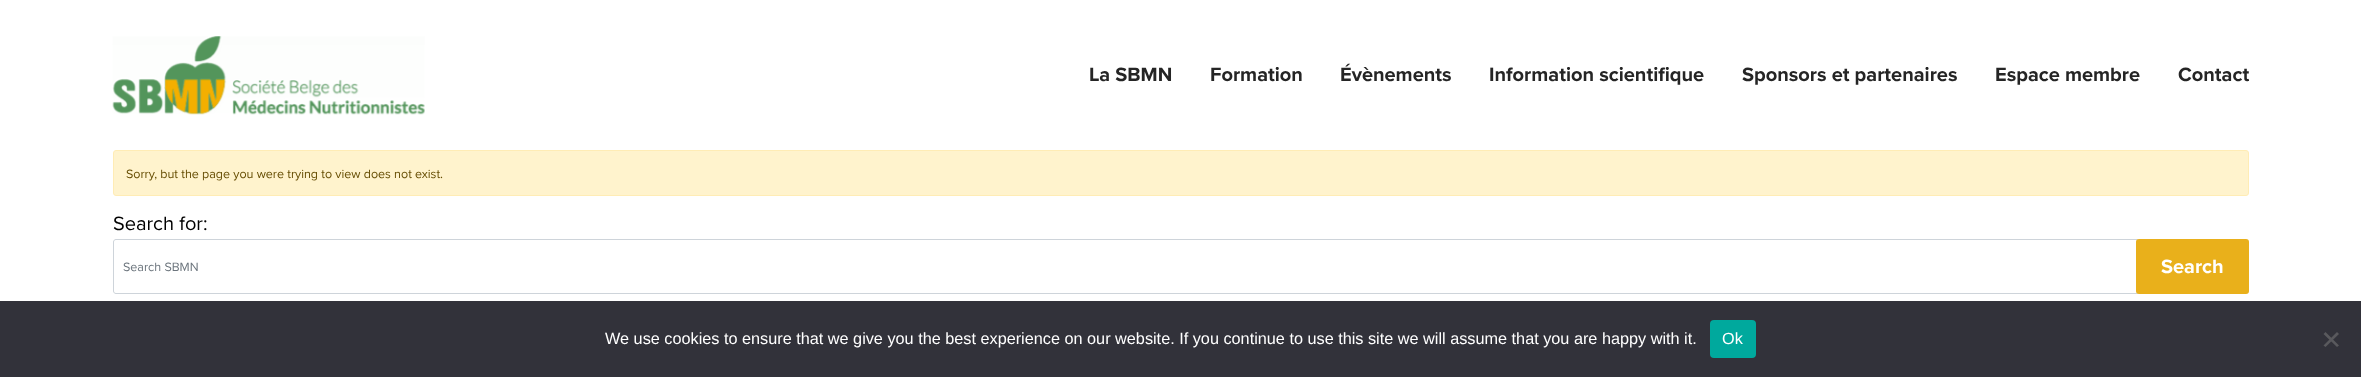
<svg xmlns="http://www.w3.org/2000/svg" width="2361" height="377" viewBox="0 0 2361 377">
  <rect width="100%" height="100%" fill="#fff"/>
  <image x="112" y="36" width="313" height="79" href="img/1.png"/>
  <rect x="113.5" y="150.5" width="2135" height="45" rx="2.5" fill="#fff3cd" stroke="#ffecb5"/>
  <path d="M116 239.5H2137.5V293.5H116C114.5 293.5 113.5 292.5 113.5 291V242C113.5 240.5 114.5 239.5 116 239.5Z" fill="none" stroke="#ced4da"/>
  <rect x="2136" y="239" width="113" height="55" rx="3" fill="#e9b01b"/>
  <path d="M0 301h2361v76H0z" fill="#32323a"/>
  <rect x="1710" y="320" width="46" height="38" rx="4" fill="#00a99d"/>
  <path d="M2337 332L2339 334L2325.5 347L2323.5 345.5Z" fill="#59595d"/>
  <path d="M2323.5 334L2325.5 332L2339 345.5L2337 347Z" fill="#59595d"/>
  <g font-family="Proxima Nova" font-size="20" font-weight="bold" fill="#252525">
    <text x="1089" y="81">La SBMN</text>
    <text x="1210" y="81">Formation</text>
    <text x="1340" y="81">Évènements</text>
    <text x="1489" y="81">Information scientifique</text>
    <text x="1742" y="81">Sponsors et partenaires</text>
    <text x="1995" y="81">Espace membre</text>
    <text x="2178" y="81">Contact</text>
  </g>
  <text x="126" y="178" font-family="Proxima Nova" font-size="12.5" fill="#664d03">Sorry, but the page you were trying to view does not exist.</text>
  <text x="113" y="230" font-family="Proxima Nova" font-size="20" fill="#000">Search for:</text>
  <text x="123" y="271" font-family="Proxima Nova" font-size="12.5" fill="#6c757d">Search SBMN</text>
  <text x="2161" y="273" font-family="Proxima Nova" font-size="20" font-weight="bold" fill="#fff">Search</text>
  <g font-family="Liberation Sans" font-size="16.25" fill="#fff">
    <text x="605" y="344">We use cookies to ensure that we give you the best experience on our website. If you continue to use this site we will assume that you are happy with it.</text>
    <text x="1722" y="344">Ok</text>
  </g>
</svg>
